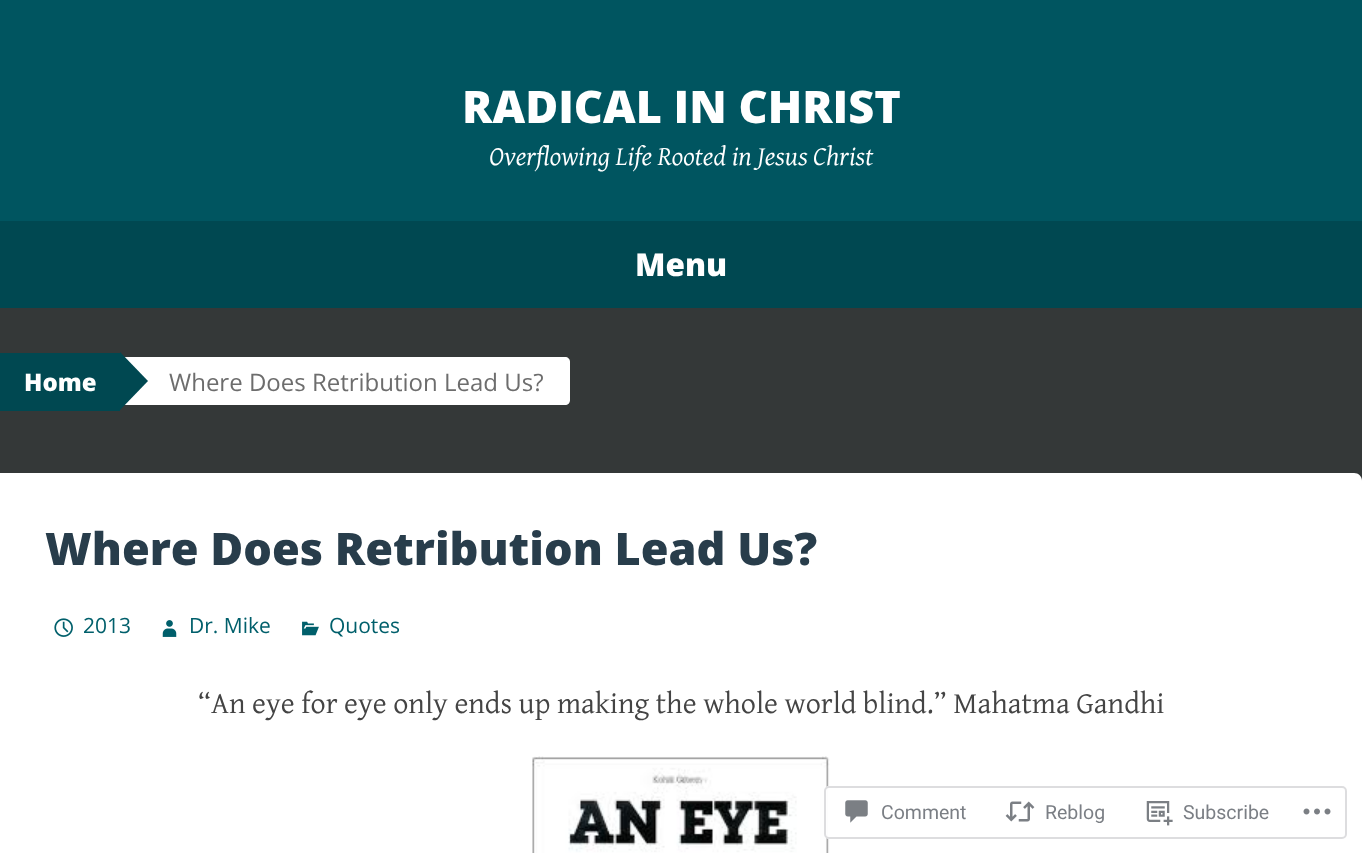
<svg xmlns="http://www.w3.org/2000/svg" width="1362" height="853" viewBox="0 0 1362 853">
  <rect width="100%" height="100%" fill="#343838"/>
  <path d="M0 0h1362v221H0z" fill="#005560"/>
  <path d="M0 221h1362v87H0z" fill="#004851"/>
  <path d="M0 353h120v58H0z" fill="#004851"/>
  <path d="M124 357h44v48H124z" fill="#fff"/>
  <path d="M120 410V352L148 381Z" fill="#004851"/>
  <path d="M168 357H565C568 357 570 359 570 362V400C570 403 568 405 565 405H168Z" fill="#fff"/>
  <path d="M0 473H1354C1358.5 473 1362 476.5 1362 481V853C1362 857.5 1358.5 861 1354 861H0Z" fill="#fff"/>
  <image x="54" y="618" width="19" height="19" href="img/1.png"/>
  <image x="162" y="620" width="15" height="17" href="img/2.png"/>
  <image x="302" y="621" width="17" height="15" href="img/3.png"/>
  <image x="532" y="756" width="298" height="97" href="img/4.png"/>
  <rect x="824" y="786" width="523" height="53" rx="5" fill="#fffffffa"/>
  <rect x="825" y="787" width="521" height="51" rx="4" fill="none" stroke="#dcdcdefa" stroke-width="2"/>
  <image x="845" y="800" width="23" height="23" href="img/5.png"/>
  <image x="1005" y="801" width="30" height="21" href="img/6.png"/>
  <image x="1146" y="801" width="27" height="25" href="img/7.png"/>
  <image x="1303" y="808" width="28" height="7" href="img/8.png"/>
  <text x="462" y="123" font-family="Open Sans" font-size="45" font-weight="800" fill="#fff">RADICAL IN CHRIST</text>
  <text x="489" y="165" font-family="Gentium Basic" font-size="27" font-style="italic" fill="#fff">Overflowing Life Rooted in Jesus Christ</text>
  <text x="635" y="276" font-family="Open Sans" font-size="31.5" font-weight="800" fill="#fff">Menu</text>
  <text x="24" y="391" font-family="Open Sans" font-size="24" font-weight="800" fill="#fff">Home</text>
  <text x="169" y="391" font-family="Open Sans" font-size="24" fill="#6d6d6d">Where Does Retribution Lead Us?</text>
  <text x="45" y="565" font-family="Open Sans" font-size="45" font-weight="800" fill="#283d4b">Where Does Retribution Lead Us?</text>
  <g font-family="Open Sans" font-size="21" fill="#005f6b">
    <text x="83" y="633">2013</text>
    <text x="189" y="633">Dr. Mike</text>
    <text x="329" y="633">Quotes</text>
  </g>
  <text x="198" y="713" font-family="Gentium Basic" font-size="30" fill="#444">“An eye for eye only ends up making the whole world blind.” Mahatma Gandhi</text>
  <g font-family="Roboto" font-size="19.5" fill="#7b7f85">
    <text x="881" y="819">Comment</text>
    <text x="1045" y="819">Reblog</text>
    <text x="1183" y="819">Subscribe</text>
  </g>
</svg>
